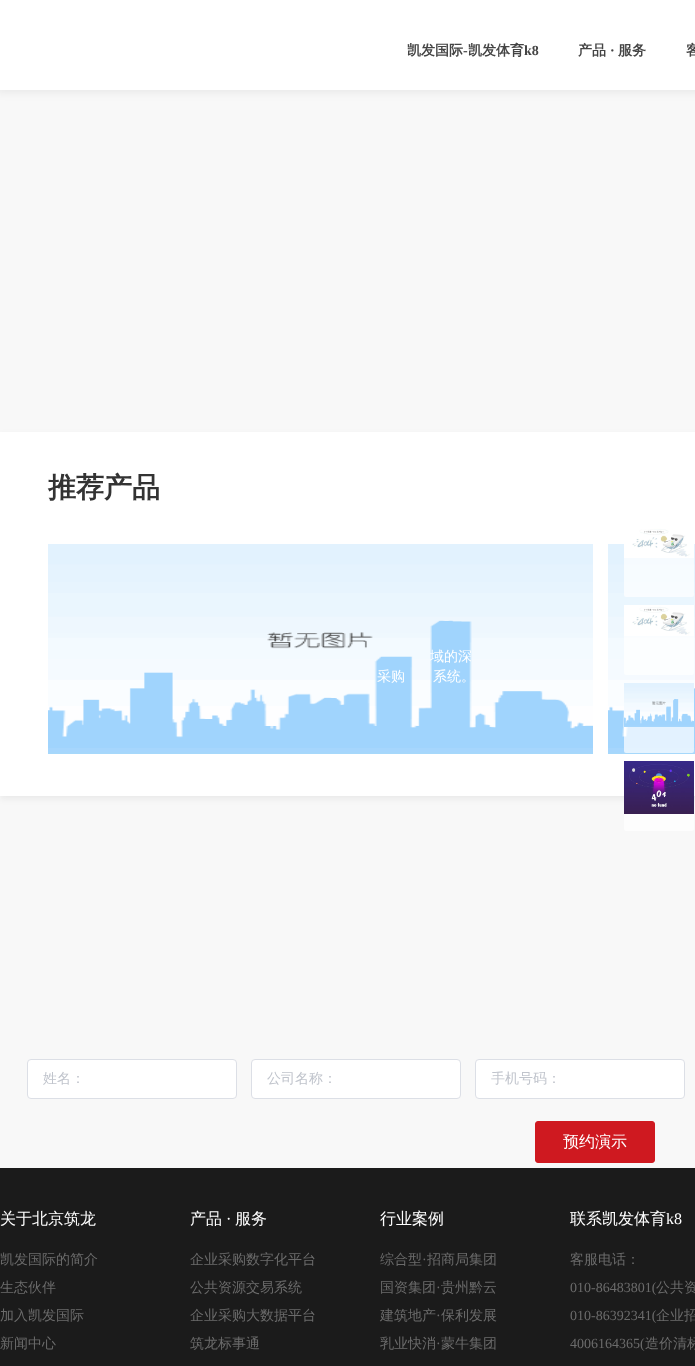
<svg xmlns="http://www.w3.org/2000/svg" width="695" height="1366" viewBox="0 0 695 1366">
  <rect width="100%" height="100%" fill="#f8f8f8"/>
  <path d="M-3 -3h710v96H-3z" fill="#0000000f" filter="blur(4px)"/>
  <path d="M0 0h695v90H0z" fill="#fff"/>
  <path d="M0 435h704v364H0z" fill="#0000000f" filter="blur(3px)"/>
  <path d="M0 432h695v364H0z" fill="#fff"/>
  <image x="48" y="544" width="545" height="210" href="img/1.png"/>
  <image x="608" y="544" width="87" height="210" href="img/2.png"/>
  <rect x="624" y="527" width="70" height="70" rx="2" fill="#ffffffb3"/>
  <image x="624" y="527" width="70" height="31" href="img/3.png"/>
  <rect x="624" y="605" width="70" height="70" rx="2" fill="#ffffffb3"/>
  <image x="624" y="605" width="70" height="31" href="img/3.png"/>
  <rect x="624" y="683" width="70" height="70" rx="2" fill="#ffffffb3"/>
  <image x="624" y="683" width="70" height="44" href="img/4.png"/>
  <rect x="624" y="761" width="70" height="70" rx="2" fill="#ffffffb3"/>
  <image x="624" y="761" width="70" height="53" href="img/5.png"/>
  <rect x="27.5" y="1059.5" width="209" height="39" rx="3.5" fill="#fff" stroke="#dcdfe6"/>
  <rect x="251.5" y="1059.5" width="209" height="39" rx="3.5" fill="#fff" stroke="#dcdfe6"/>
  <rect x="475.5" y="1059.5" width="209" height="39" rx="3.5" fill="#fff" stroke="#dcdfe6"/>
  <rect x="535.5" y="1121.5" width="119" height="41" rx="2.5" fill="#cf1920" stroke="#cf1920"/>
  <path d="M0 1168h695v198H0z" fill="#1b1b1b"/>
  <text x="407" y="55" font-family="WenQuanYi Zen Hei" font-size="14" font-weight="bold" fill="#444">凯发国际</text>
  <text x="463" y="55" font-family="Liberation Serif" font-size="14" font-weight="bold" fill="#444">-</text>
  <text x="468" y="55" font-family="WenQuanYi Zen Hei" font-size="14" font-weight="bold" fill="#444">凯发体育</text>
  <text x="524" y="55" font-family="Liberation Serif" font-size="14" font-weight="bold" fill="#444">k8</text>
  <text x="578" y="55" font-family="WenQuanYi Zen Hei" font-size="14" font-weight="bold" fill="#444">产品</text>
  <text x="610" y="55" font-family="Liberation Serif" font-size="14" font-weight="bold" fill="#444">·</text>
  <g font-family="WenQuanYi Zen Hei" font-size="14" font-weight="bold" fill="#444">
    <text x="618" y="55">服务</text>
    <text x="686" y="55">客</text>
  </g>
  <text x="48" y="497" font-family="WenQuanYi Zen Hei" font-size="28" font-weight="bold" fill="#333">推荐产品</text>
  <g font-family="WenQuanYi Zen Hei" font-size="14" font-weight="500" fill="#fff">
    <text x="430" y="661">域的深</text>
    <text x="377" y="681">采购</text>
    <text x="433" y="681">系统。</text>
  </g>
  <g font-family="WenQuanYi Zen Hei" font-size="14" font-weight="500" fill="#c0c4cc">
    <text x="43" y="1083">姓名：</text>
    <text x="267" y="1083">公司名称：</text>
    <text x="491" y="1083">手机号码：</text>
  </g>
  <g font-family="WenQuanYi Zen Hei" font-size="16" font-weight="500" fill="#fff">
    <text x="563" y="1147">预约演示</text>
    <text x="0" y="1224">关于北京筑龙</text>
  </g>
  <g font-family="WenQuanYi Zen Hei" font-size="14" font-weight="500" fill="#6b6b6b">
    <text x="0" y="1264">凯发国际的简介</text>
    <text x="0" y="1292">生态伙伴</text>
    <text x="0" y="1320">加入凯发国际</text>
    <text x="0" y="1348">新闻中心</text>
  </g>
  <text x="190" y="1224" font-family="WenQuanYi Zen Hei" font-size="16" font-weight="500" fill="#fff">产品</text>
  <text x="226" y="1224" font-family="Liberation Serif" font-size="16" fill="#fff">·</text>
  <text x="235" y="1224" font-family="WenQuanYi Zen Hei" font-size="16" font-weight="500" fill="#fff">服务</text>
  <g font-family="WenQuanYi Zen Hei" font-size="14" font-weight="500" fill="#6b6b6b">
    <text x="190" y="1264">企业采购数字化平台</text>
    <text x="190" y="1292">公共资源交易系统</text>
    <text x="190" y="1320">企业采购大数据平台</text>
    <text x="190" y="1348">筑龙标事通</text>
  </g>
  <text x="380" y="1224" font-family="WenQuanYi Zen Hei" font-size="16" font-weight="500" fill="#fff">行业案例</text>
  <text x="380" y="1264" font-family="WenQuanYi Zen Hei" font-size="14" font-weight="500" fill="#6b6b6b">综合型</text>
  <text x="422" y="1264" font-family="Liberation Serif" font-size="14" fill="#6b6b6b">·</text>
  <g font-family="WenQuanYi Zen Hei" font-size="14" font-weight="500" fill="#6b6b6b">
    <text x="427" y="1264">招商局集团</text>
    <text x="380" y="1292">国资集团</text>
  </g>
  <text x="436" y="1292" font-family="Liberation Serif" font-size="14" fill="#6b6b6b">·</text>
  <g font-family="WenQuanYi Zen Hei" font-size="14" font-weight="500" fill="#6b6b6b">
    <text x="441" y="1292">贵州黔云</text>
    <text x="380" y="1320">建筑地产</text>
  </g>
  <text x="436" y="1320" font-family="Liberation Serif" font-size="14" fill="#6b6b6b">·</text>
  <g font-family="WenQuanYi Zen Hei" font-size="14" font-weight="500" fill="#6b6b6b">
    <text x="441" y="1320">保利发展</text>
    <text x="380" y="1348">乳业快消</text>
  </g>
  <text x="436" y="1348" font-family="Liberation Serif" font-size="14" fill="#6b6b6b">·</text>
  <text x="441" y="1348" font-family="WenQuanYi Zen Hei" font-size="14" font-weight="500" fill="#6b6b6b">蒙牛集团</text>
  <text x="570" y="1224" font-family="WenQuanYi Zen Hei" font-size="16" font-weight="500" fill="#fff">联系凯发体育</text>
  <text x="666" y="1224" font-family="Liberation Serif" font-size="16" fill="#fff">k8</text>
  <text x="570" y="1264" font-family="WenQuanYi Zen Hei" font-size="14" font-weight="500" fill="#6b6b6b">客服电话：</text>
  <text x="570" y="1292" font-family="Liberation Serif" font-size="14" fill="#6b6b6b">010-86483801(</text>
  <text x="656" y="1292" font-family="WenQuanYi Zen Hei" font-size="14" font-weight="500" fill="#6b6b6b">公共资</text>
  <text x="570" y="1320" font-family="Liberation Serif" font-size="14" fill="#6b6b6b">010-86392341(</text>
  <text x="656" y="1320" font-family="WenQuanYi Zen Hei" font-size="14" font-weight="500" fill="#6b6b6b">企业招</text>
  <text x="570" y="1348" font-family="Liberation Serif" font-size="14" fill="#6b6b6b">4006164365(</text>
  <text x="645" y="1348" font-family="WenQuanYi Zen Hei" font-size="14" font-weight="500" fill="#6b6b6b">造价清标</text>
</svg>
